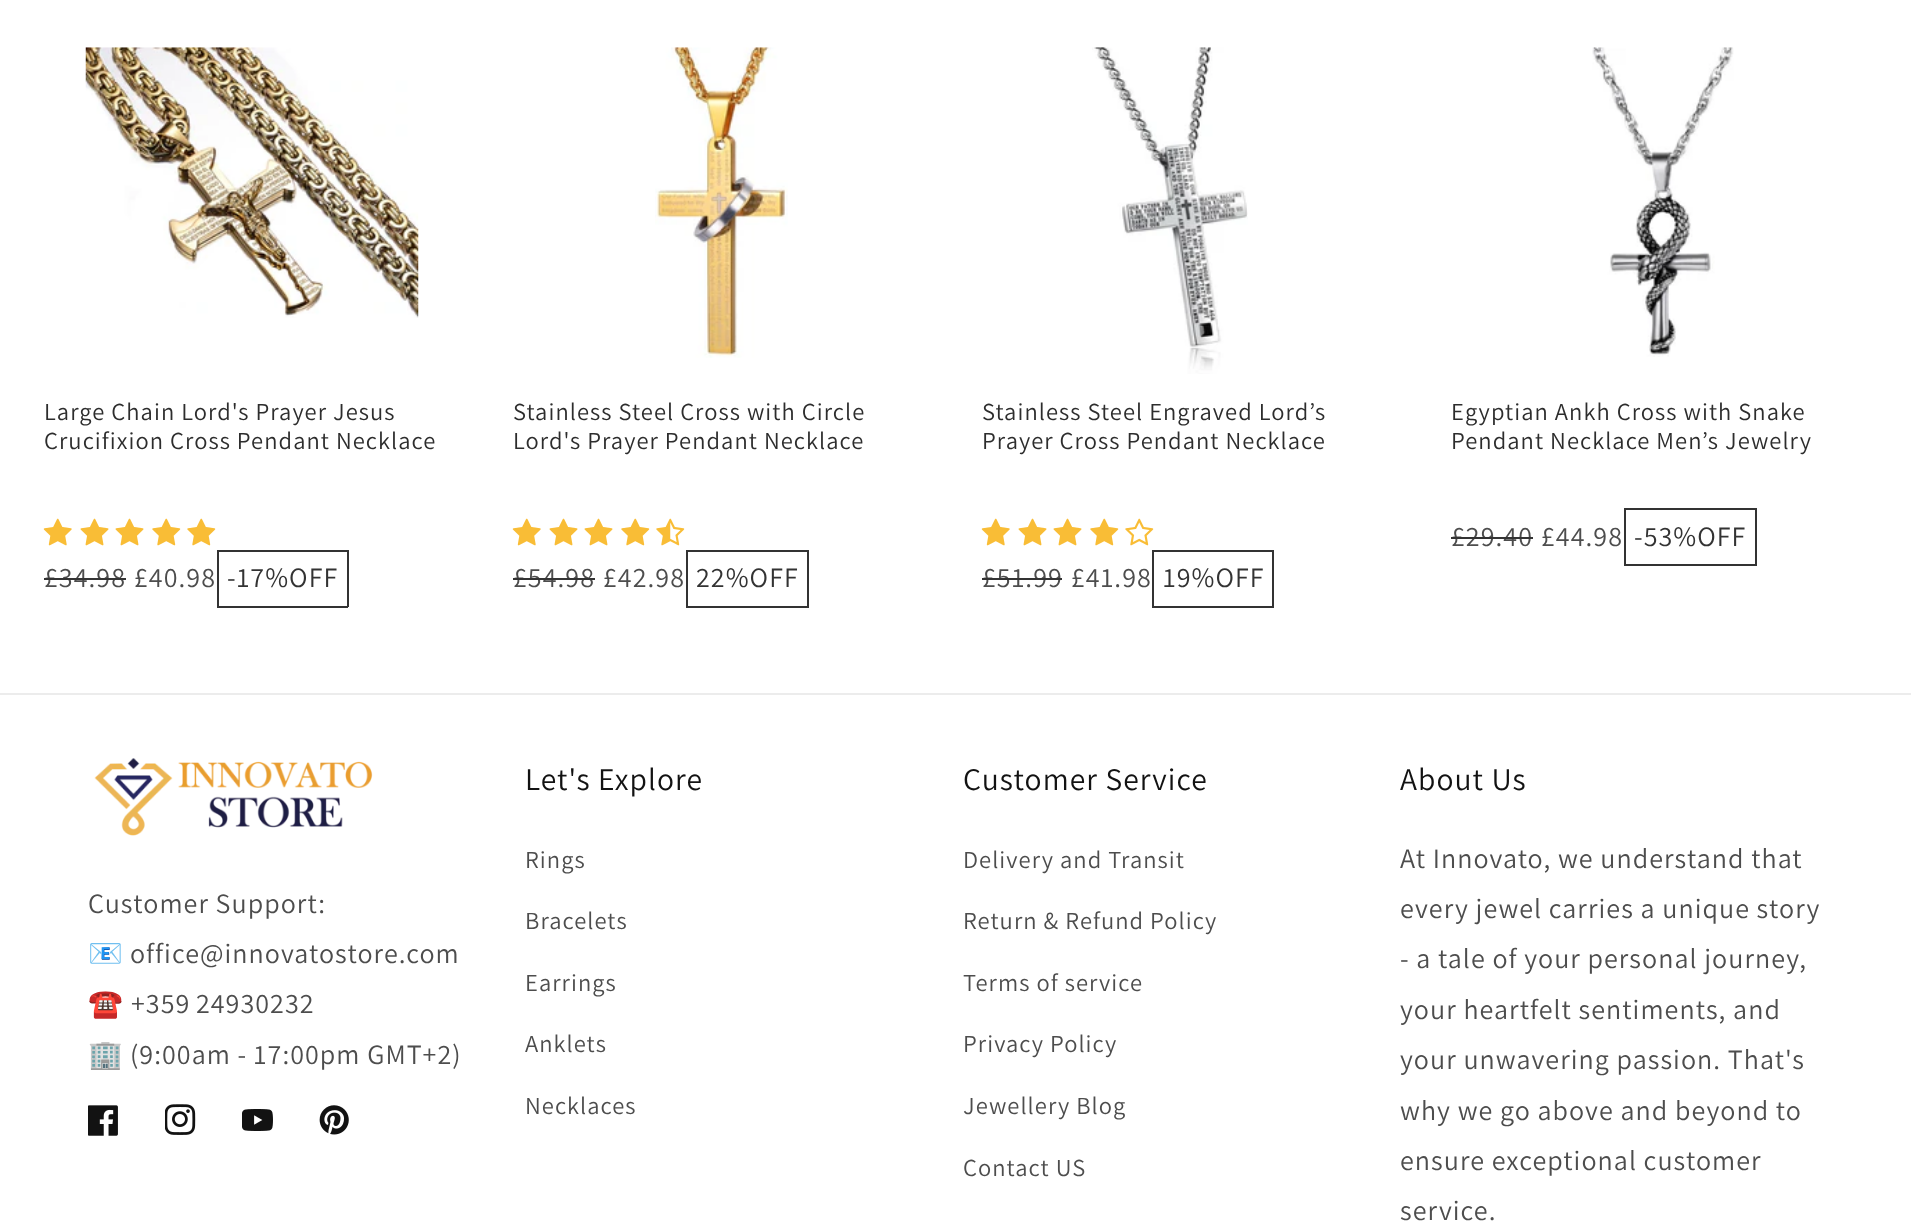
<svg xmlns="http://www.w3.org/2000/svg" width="1911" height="1221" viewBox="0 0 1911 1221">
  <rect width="100%" height="100%" fill="#fff"/>
  <image x="85" y="47" width="334" height="271" href="img/1.png"/>
  <image x="43" y="518" width="29" height="28" href="img/2.png"/>
  <image x="80" y="518" width="29" height="28" href="img/3.png"/>
  <image x="115" y="518" width="29" height="28" href="img/3.png"/>
  <image x="152" y="518" width="29" height="28" href="img/4.png"/>
  <image x="187" y="518" width="29" height="28" href="img/4.png"/>
  <path d="M217 550h131v2H217z" fill="#333"/>
  <path d="M217 606h72v2H217z" fill="#333"/>
  <path d="M217 550h2v57H217z" fill="#333"/>
  <path d="M347 550h2v57H347z" fill="#333"/>
  <path d="M289 606h59v2H289z" fill="#333"/>
  <image x="655" y="47" width="133" height="311" href="img/5.png"/>
  <image x="512" y="518" width="29" height="28" href="img/2.png"/>
  <image x="549" y="518" width="29" height="28" href="img/3.png"/>
  <image x="584" y="518" width="29" height="28" href="img/3.png"/>
  <image x="621" y="518" width="29" height="28" href="img/4.png"/>
  <image x="656" y="518" width="29" height="28" href="img/6.png"/>
  <path d="M686 550h123v2H686z" fill="#333"/>
  <path d="M686 606h63v2H686z" fill="#333"/>
  <path d="M686 550h2v57H686z" fill="#333"/>
  <path d="M807 550h2v57H807z" fill="#333"/>
  <path d="M749 606h60v2H749z" fill="#333"/>
  <image x="1092" y="47" width="156" height="327" href="img/7.png"/>
  <image x="981" y="518" width="29" height="28" href="img/2.png"/>
  <image x="1018" y="518" width="29" height="28" href="img/3.png"/>
  <image x="1053" y="518" width="29" height="28" href="img/3.png"/>
  <image x="1090" y="518" width="29" height="28" href="img/4.png"/>
  <image x="1125" y="518" width="29" height="28" href="img/8.png"/>
  <path d="M1152 550h122v2H1152z" fill="#333"/>
  <path d="M1152 606h63v2H1152z" fill="#333"/>
  <path d="M1152 550h2v57H1152z" fill="#333"/>
  <path d="M1272 550h2v57H1272z" fill="#333"/>
  <path d="M1215 606h59v2H1215z" fill="#333"/>
  <image x="1592" y="47" width="142" height="310" href="img/9.png"/>
  <path d="M1624 508h133v2H1624z" fill="#333"/>
  <path d="M1624 564h74v2H1624z" fill="#333"/>
  <path d="M1624 508h2v57H1624z" fill="#333"/>
  <path d="M1755 508h2v57H1755z" fill="#333"/>
  <path d="M1698 564h59v2H1698z" fill="#333"/>
  <path d="M0 693h1911v2H0z" fill="#ececec"/>
  <image x="94" y="758" width="279" height="78" href="img/10.png"/>
  <image x="88" y="1105" width="30" height="31" href="img/11.png"/>
  <image x="165" y="1104" width="31" height="31" href="img/12.png"/>
  <image x="242" y="1109" width="31" height="22" href="img/13.png"/>
  <image x="319" y="1105" width="30" height="30" href="img/14.png"/>
  <g font-family="Assistant" font-size="24.5" letter-spacing="1.05" fill="#2d2d2d">
    <text x="44" y="420">Large Chain Lord's Prayer Jesus</text>
    <text x="44" y="449">Crucifixion Cross Pendant Necklace</text>
  </g>
  <text x="44" y="587" font-family="Assistant" font-size="28" letter-spacing="1.05" fill="#4d4d4d">£34.98</text>
  <path d="M44 578h82v2H44z" fill="#333"/>
  <text x="134" y="587" font-family="Assistant" font-size="28" letter-spacing="1.05" fill="#4d4d4d">£40.98</text>
  <text x="227" y="587" font-family="Assistant" font-size="28" letter-spacing="1.05" fill="#333">-17%OFF</text>
  <g font-family="Assistant" font-size="24.5" letter-spacing="1.05" fill="#2d2d2d">
    <text x="513" y="420">Stainless Steel Cross with Circle</text>
    <text x="513" y="449">Lord's Prayer Pendant Necklace</text>
  </g>
  <text x="513" y="587" font-family="Assistant" font-size="28" letter-spacing="1.05" fill="#4d4d4d">£54.98</text>
  <path d="M513 578h82v2H513z" fill="#333"/>
  <text x="603" y="587" font-family="Assistant" font-size="28" letter-spacing="1.05" fill="#4d4d4d">£42.98</text>
  <text x="696" y="587" font-family="Assistant" font-size="28" letter-spacing="1.05" fill="#333">22%OFF</text>
  <g font-family="Assistant" font-size="24.5" letter-spacing="1.05" fill="#2d2d2d">
    <text x="982" y="420">Stainless Steel Engraved Lord’s</text>
    <text x="982" y="449">Prayer Cross Pendant Necklace</text>
  </g>
  <text x="982" y="587" font-family="Assistant" font-size="28" letter-spacing="1.05" fill="#4d4d4d">£51.99</text>
  <path d="M982 578h80v2H982z" fill="#333"/>
  <text x="1071" y="587" font-family="Assistant" font-size="28" letter-spacing="1.05" fill="#4d4d4d">£41.98</text>
  <text x="1163" y="587" font-family="Assistant" font-size="28" letter-spacing="1.05" fill="#333">19%OFF</text>
  <g font-family="Assistant" font-size="24.5" letter-spacing="1.05" fill="#2d2d2d">
    <text x="1451" y="420">Egyptian Ankh Cross with Snake</text>
    <text x="1451" y="449">Pendant Necklace Men’s Jewelry</text>
  </g>
  <text x="1451" y="546" font-family="Assistant" font-size="28" letter-spacing="1.05" fill="#4d4d4d">£29.40</text>
  <path d="M1451 537h82v2H1451z" fill="#333"/>
  <text x="1541" y="546" font-family="Assistant" font-size="28" letter-spacing="1.05" fill="#4d4d4d">£44.98</text>
  <text x="1634" y="546" font-family="Assistant" font-size="28" letter-spacing="1.05" fill="#333">-53%OFF</text>
  <text x="88" y="913" font-family="Assistant" font-size="28" letter-spacing="1.05" fill="#4d4d4d">Customer Support:</text>
  <text x="88" y="963" font-family="Noto Color Emoji" font-size="28" letter-spacing="1.05" fill="#4d4d4d">📧</text>
  <text x="130" y="963" font-family="Assistant" font-size="28" letter-spacing="1.05" fill="#4d4d4d">office@innovatostore.com</text>
  <text x="88" y="1013" font-family="Noto Color Emoji" font-size="28" letter-spacing="1.05" fill="#4d4d4d">☎️</text>
  <text x="131" y="1013" word-spacing="-1" font-family="Assistant" font-size="28" letter-spacing="1.05" fill="#4d4d4d">+359 24930232</text>
  <text x="88" y="1064" font-family="Noto Color Emoji" font-size="28" letter-spacing="1.05" fill="#4d4d4d">🏢</text>
  <text x="130" y="1064" font-family="Assistant" font-size="28" letter-spacing="1.05" fill="#4d4d4d">(9:00am - 17:00pm GMT+2)</text>
  <text x="525" y="790" font-family="Assistant" font-size="31.5" letter-spacing="1.05" fill="#121212">Let's Explore</text>
  <g font-family="Assistant" font-size="24.5" letter-spacing="1.05" fill="#4d4d4d">
    <text x="525" y="868">Rings</text>
    <text x="525" y="929">Bracelets</text>
    <text x="525" y="991">Earrings</text>
    <text x="525" y="1052">Anklets</text>
    <text x="525" y="1114">Necklaces</text>
  </g>
  <text x="963" y="790" font-family="Assistant" font-size="31.5" letter-spacing="1.05" fill="#121212">Customer Service</text>
  <g font-family="Assistant" font-size="24.5" letter-spacing="1.05" fill="#4d4d4d">
    <text x="963" y="868">Delivery and Transit</text>
    <text x="963" y="929">Return &amp; Refund Policy</text>
    <text x="963" y="991">Terms of service</text>
    <text x="963" y="1052">Privacy Policy</text>
    <text x="963" y="1114">Jewellery Blog</text>
    <text x="963" y="1176">Contact US</text>
  </g>
  <text x="1400" y="790" font-family="Assistant" font-size="31.5" letter-spacing="1.05" fill="#121212">About Us</text>
  <g font-family="Assistant" font-size="28" letter-spacing="1.05" fill="#4d4d4d">
    <text x="1400" y="868">At Innovato, we understand that</text>
    <text x="1400" y="918">every jewel carries a unique story</text>
    <text x="1400" y="968">- a tale of your personal journey,</text>
    <text x="1400" y="1019">your heartfelt sentiments, and</text>
    <text x="1400" y="1069">your unwavering passion. That's</text>
    <text x="1400" y="1120">why we go above and beyond to</text>
    <text x="1400" y="1170">ensure exceptional customer</text>
    <text x="1400" y="1220">service.</text>
  </g>
</svg>
